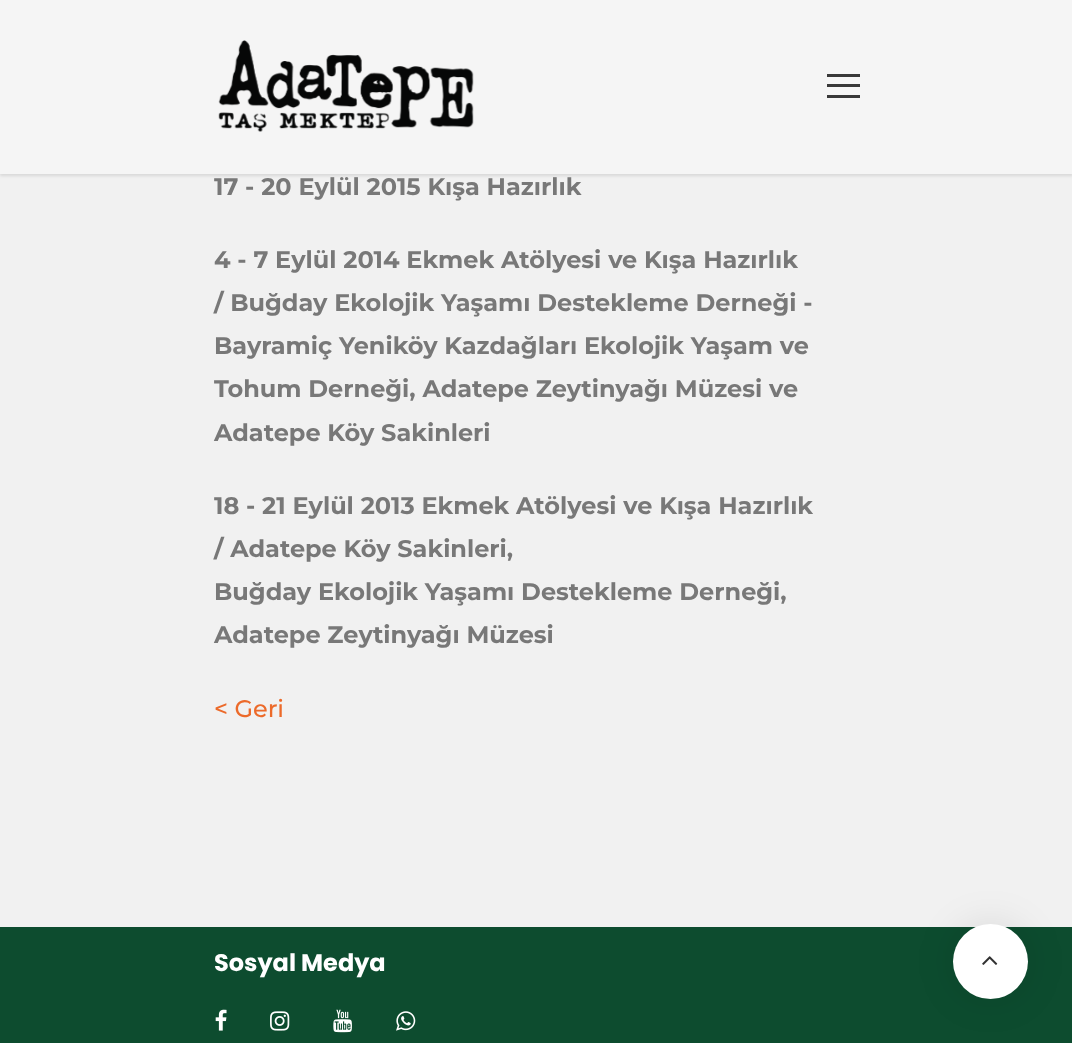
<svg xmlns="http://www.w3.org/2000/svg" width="1072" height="1043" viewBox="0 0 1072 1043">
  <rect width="100%" height="100%" fill="#0d4c2f"/>
  <path d="M0 174h1072v753H0z" fill="#f1f1f1"/>
  <path d="M0 2h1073v174H0z" fill="#0000001a" filter="blur(1.5px)"/>
  <path d="M0 0h1072v174H0z" fill="#f5f5f5"/>
  <image x="218" y="40" width="256" height="92" href="img/1.png"/>
  <path d="M827 74h33v3H827z" fill="#383838"/>
  <path d="M827 84h33v3H827z" fill="#383838"/>
  <path d="M827 95h33v3H827z" fill="#383838"/>
  <image x="215" y="1009" width="12" height="22" href="img/2.png"/>
  <image x="270" y="1011" width="20" height="20" href="img/3.png"/>
  <image x="333" y="1009" width="19" height="24" href="img/4.png"/>
  <image x="396" y="1011" width="20" height="20" href="img/5.png"/>
  <rect x="953" y="924" width="75" height="75" rx="37.5" fill="#0000001a" filter="blur(19px)"/>
  <circle cx="990.5" cy="961.5" r="37.5" fill="#fff"/>
  <image x="982" y="956" width="16" height="9" href="img/6.png"/>
  <g font-family="Montserrat" font-size="24" font-weight="bold" fill="#787878">
    <text x="214" y="195">17 - 20 Eylül 2015 Kışa Hazırlık</text>
    <text x="214" y="268">4 - 7 Eylül 2014 Ekmek Atölyesi ve Kışa Hazırlık</text>
    <text x="214" y="311">/ Buğday Ekolojik Yaşamı Destekleme Derneği -</text>
    <text x="214" y="354">Bayramiç Yeniköy Kazdağları Ekolojik Yaşam ve</text>
    <text x="214" y="397">Tohum Derneği, Adatepe Zeytinyağı Müzesi ve</text>
    <text x="214" y="441">Adatepe Köy Sakinleri</text>
    <text x="214" y="514">18 - 21 Eylül 2013 Ekmek Atölyesi ve Kışa Hazırlık</text>
    <text x="214" y="557">/ Adatepe Köy Sakinleri,</text>
    <text x="214" y="600">Buğday Ekolojik Yaşamı Destekleme Derneği,</text>
    <text x="214" y="643">Adatepe Zeytinyağı Müzesi</text>
  </g>
  <text x="214" y="717" font-family="Montserrat" font-size="24" font-weight="500" fill="#ec6a2a">&lt; Geri</text>
  <text x="214" y="971" font-family="Poppins" font-size="24" font-weight="bold" fill="#fff">Sosyal Medya</text>
</svg>
